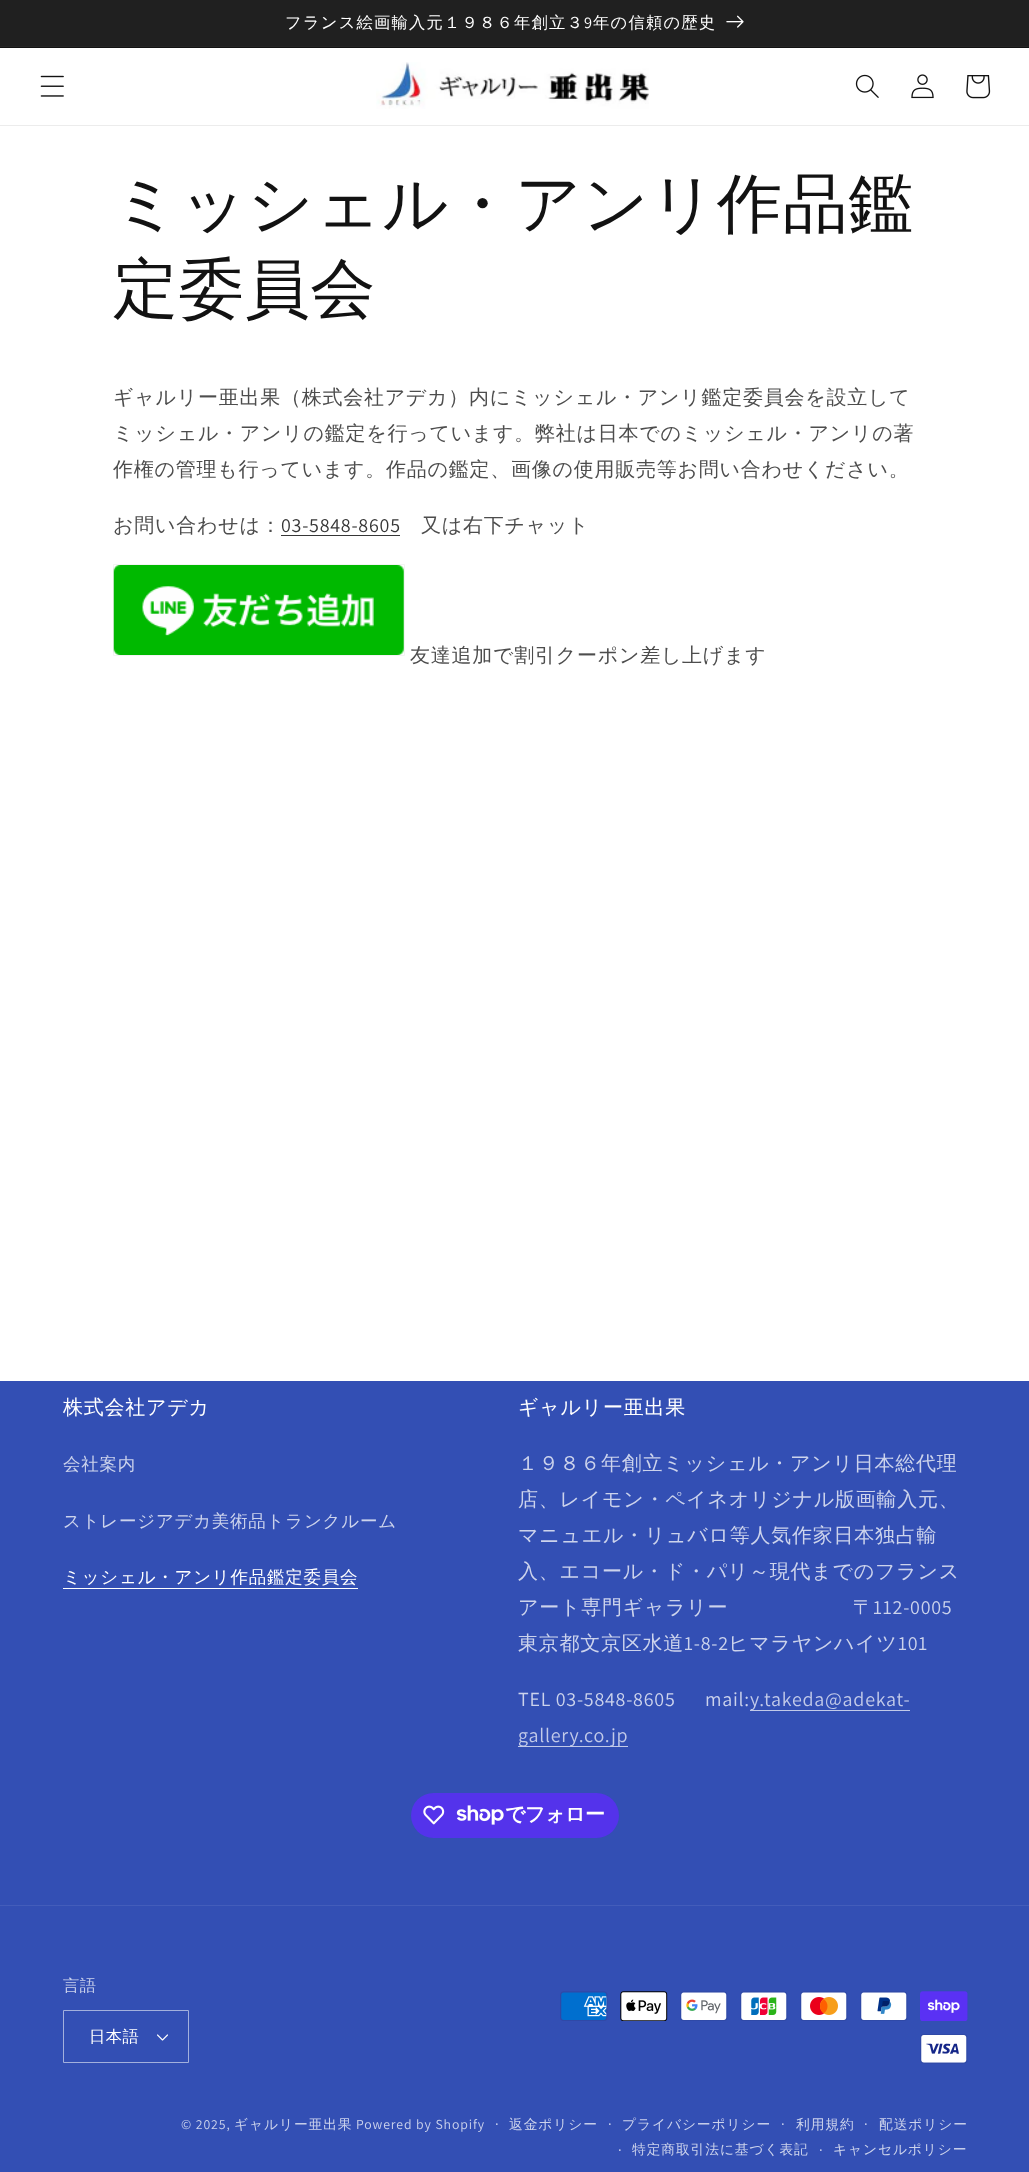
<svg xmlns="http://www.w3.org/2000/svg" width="1029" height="2172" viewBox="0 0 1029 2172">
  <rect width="100%" height="100%" fill="#fff"/>
  <path d="M0 47h1029v1H0z" fill="#121212"/>
  <path d="M0 46h1029v1H0z" fill="#252525"/>
  <path d="M0 0h1029v46H0z" fill="#202020"/>
  <image x="726" y="15" width="18" height="13" href="img/1.png"/>
  <path d="M0 125h1029v1H0z" fill="#ececec"/>
  <image x="40" y="75" width="24" height="22" href="img/2.png"/>
  <image x="376" y="62" width="273" height="47" href="img/3.png"/>
  <image x="855" y="74" width="24" height="24" href="img/4.png"/>
  <image x="911" y="74" width="23" height="25" href="img/5.png"/>
  <image x="966" y="75" width="25" height="24" href="img/6.png"/>
  <path d="M281 535h119v1H281z" fill="#363636"/>
  <path d="M113.5 564.5h291v91H113.5z" fill="none" stroke="#f3f3f3"/>
  <image x="113" y="565" width="291" height="90" href="img/7.png"/>
  <path d="M0 1381h1029v791H0z" fill="#334fb4"/>
  <path d="M63 1588h295v1H63z" fill="#fff"/>
  <path d="M750 1710h160v1H750z" fill="#c2cae9"/>
  <path d="M518 1746h110v1H518z" fill="#c2cae9"/>
  <rect x="411" y="1793" width="208" height="45" rx="22.5" fill="#5433eb"/>
  <image x="423" y="1805" width="22" height="20" href="img/8.png"/>
  <image x="456" y="1805" width="48" height="20" href="img/9.png"/>
  <path d="M0 1905h1029v1H0z" fill="#435dba"/>
  <image x="157" y="2034" width="11" height="7" href="img/10.png"/>
  <path d="M63.5 2010.5h125v52H63.5z" fill="none" stroke="#a3b0dd"/>
  <image x="560" y="1991" width="48" height="30" href="img/11.png"/>
  <image x="620" y="1991" width="48" height="30" href="img/12.png"/>
  <image x="680" y="1991" width="48" height="30" href="img/13.png"/>
  <image x="740" y="1991" width="48" height="30" href="img/14.png"/>
  <image x="800" y="1991" width="48" height="30" href="img/15.png"/>
  <image x="860" y="1991" width="48" height="30" href="img/16.png"/>
  <image x="920" y="1991" width="48" height="30" href="img/17.png"/>
  <image x="920" y="2034" width="48" height="30" href="img/18.png"/>
  <text x="285" y="28" font-family="WenQuanYi Zen Hei" font-size="16.25" font-weight="500" letter-spacing="1.25" fill="#fff">フランス絵画輸入元１９８６年創立３</text>
  <text x="584" y="28" font-family="Assistant" font-size="16.25" letter-spacing="1.25" fill="#fff">9</text>
  <text x="593" y="28" font-family="WenQuanYi Zen Hei" font-size="16.25" font-weight="500" letter-spacing="1.25" fill="#fff">年の信頼の歴史</text>
  <g font-family="WenQuanYi Zen Hei" font-size="65" font-weight="500" letter-spacing="0.75" fill="#121212">
    <text x="113" y="226">ミッシェル・アンリ作品鑑</text>
    <text x="113" y="311">定委員会</text>
  </g>
  <g font-family="WenQuanYi Zen Hei" font-size="20" font-weight="500" letter-spacing="0.75" fill="#4d4d4d">
    <text x="113" y="404">ギャルリー亜出果（株式会社アデカ）内にミッシェル・アンリ鑑定委員会を設立して</text>
    <text x="113" y="440">ミッシェル・アンリの鑑定を行っています。弊社は日本でのミッシェル・アンリの著</text>
    <text x="113" y="476">作権の管理も行っています。作品の鑑定、画像の使用販売等お問い合わせください。</text>
    <text x="113" y="532">お問い合わせは：</text>
  </g>
  <text x="281" y="532" font-family="Assistant" font-size="20" letter-spacing="0.75" fill="#363636">03-5848-8605</text>
  <g font-family="WenQuanYi Zen Hei" font-size="20" font-weight="500" letter-spacing="0.75" fill="#4d4d4d">
    <text x="421" y="532">又は右下チャット</text>
    <text x="410" y="662">友達追加で割引クーポン差し上げます</text>
  </g>
  <text x="63" y="1414" font-family="WenQuanYi Zen Hei" font-size="20" font-weight="500" letter-spacing="0.75" fill="#fff">株式会社アデカ</text>
  <g font-family="WenQuanYi Zen Hei" font-size="17.5" font-weight="500" letter-spacing="0.75" fill="#ccd3ec">
    <text x="63" y="1470">会社案内</text>
    <text x="63" y="1527">ストレージアデカ美術品トランクルーム</text>
  </g>
  <text x="63" y="1583" font-family="WenQuanYi Zen Hei" font-size="17.5" font-weight="500" letter-spacing="0.75" fill="#fff">ミッシェル・アンリ作品鑑定委員会</text>
  <text x="518" y="1414" font-family="WenQuanYi Zen Hei" font-size="20" font-weight="500" letter-spacing="0.75" fill="#fff">ギャルリー亜出果</text>
  <g font-family="WenQuanYi Zen Hei" font-size="20" font-weight="500" letter-spacing="0.75" fill="#ccd3ec">
    <text x="518" y="1470">１９８６年創立ミッシェル・アンリ日本総代理</text>
    <text x="518" y="1506">店、レイモン・ペイネオリジナル版画輸入元、</text>
    <text x="518" y="1542">マニュエル・リュバロ等人気作家日本独占輸</text>
    <text x="518" y="1578">入、エコール・ド・パリ～現代までのフランス</text>
    <text x="518" y="1614">アート専門ギャラリー　　　　　　〒</text>
  </g>
  <text x="873" y="1614" font-family="Assistant" font-size="20" letter-spacing="0.75" fill="#ccd3ec">112-0005</text>
  <text x="518" y="1650" font-family="WenQuanYi Zen Hei" font-size="20" font-weight="500" letter-spacing="0.75" fill="#ccd3ec">東京都文京区水道</text>
  <text x="684" y="1650" font-family="Assistant" font-size="20" letter-spacing="0.75" fill="#ccd3ec">1-8-2</text>
  <text x="728" y="1650" font-family="WenQuanYi Zen Hei" font-size="20" font-weight="500" letter-spacing="0.75" fill="#ccd3ec">ヒマラヤンハイツ</text>
  <g font-family="Assistant" font-size="20" letter-spacing="0.75" fill="#ccd3ec">
    <text x="898" y="1650">101</text>
    <text x="518" y="1706">TEL 03-5848-8605</text>
    <text x="705" y="1706">mail:</text>
  </g>
  <g font-family="Assistant" font-size="20" letter-spacing="0.75" fill="#c2cae9">
    <text x="750" y="1706">y.takeda@adekat-</text>
    <text x="518" y="1742">gallery.co.jp</text>
  </g>
  <text x="505" y="1821" font-family="WenQuanYi Zen Hei" font-size="20" font-weight="bold" letter-spacing="-0.5" fill="#fff">でフォロー</text>
  <text x="63" y="1991" font-family="WenQuanYi Zen Hei" font-size="16.25" font-weight="500" letter-spacing="0.5" fill="#ccd3ec">言語</text>
  <text x="89" y="2042" font-family="WenQuanYi Zen Hei" font-size="16.25" font-weight="500" letter-spacing="0.5" fill="#fff">日本語</text>
  <text x="181" y="2129" font-family="Assistant" font-size="13.75" letter-spacing="0.9" fill="#ccd3ec">© 2025,</text>
  <text x="234" y="2129" font-family="WenQuanYi Zen Hei" font-size="13.75" font-weight="500" letter-spacing="0.9" fill="#ccd3ec">ギャルリー亜出果</text>
  <text x="356" y="2129" font-family="Assistant" font-size="13.75" letter-spacing="0.9" fill="#ccd3ec">Powered by Shopify</text>
  <text x="495" y="2129" font-family="Assistant" font-size="15" letter-spacing="0.9" fill="#ccd3ec">·</text>
  <text x="509" y="2129" font-family="WenQuanYi Zen Hei" font-size="13.75" font-weight="500" letter-spacing="0.9" fill="#ccd3ec">返金ポリシー</text>
  <text x="608" y="2129" font-family="Assistant" font-size="15" letter-spacing="0.9" fill="#ccd3ec">·</text>
  <text x="622" y="2129" font-family="WenQuanYi Zen Hei" font-size="13.75" font-weight="500" letter-spacing="0.9" fill="#ccd3ec">プライバシーポリシー</text>
  <text x="781" y="2129" font-family="Assistant" font-size="15" letter-spacing="0.9" fill="#ccd3ec">·</text>
  <text x="796" y="2129" font-family="WenQuanYi Zen Hei" font-size="13.75" font-weight="500" letter-spacing="0.9" fill="#ccd3ec">利用規約</text>
  <text x="864" y="2129" font-family="Assistant" font-size="15" letter-spacing="0.9" fill="#ccd3ec">·</text>
  <text x="879" y="2129" font-family="WenQuanYi Zen Hei" font-size="13.75" font-weight="500" letter-spacing="0.9" fill="#ccd3ec">配送ポリシー</text>
  <text x="618" y="2155" font-family="Assistant" font-size="15" letter-spacing="0.9" fill="#ccd3ec">·</text>
  <text x="632" y="2154" font-family="WenQuanYi Zen Hei" font-size="13.75" font-weight="500" letter-spacing="0.9" fill="#ccd3ec">特定商取引法に基づく表記</text>
  <text x="819" y="2155" font-family="Assistant" font-size="15" letter-spacing="0.9" fill="#ccd3ec">·</text>
  <text x="833" y="2154" font-family="WenQuanYi Zen Hei" font-size="13.75" font-weight="500" letter-spacing="0.9" fill="#ccd3ec">キャンセルポリシー</text>
</svg>
